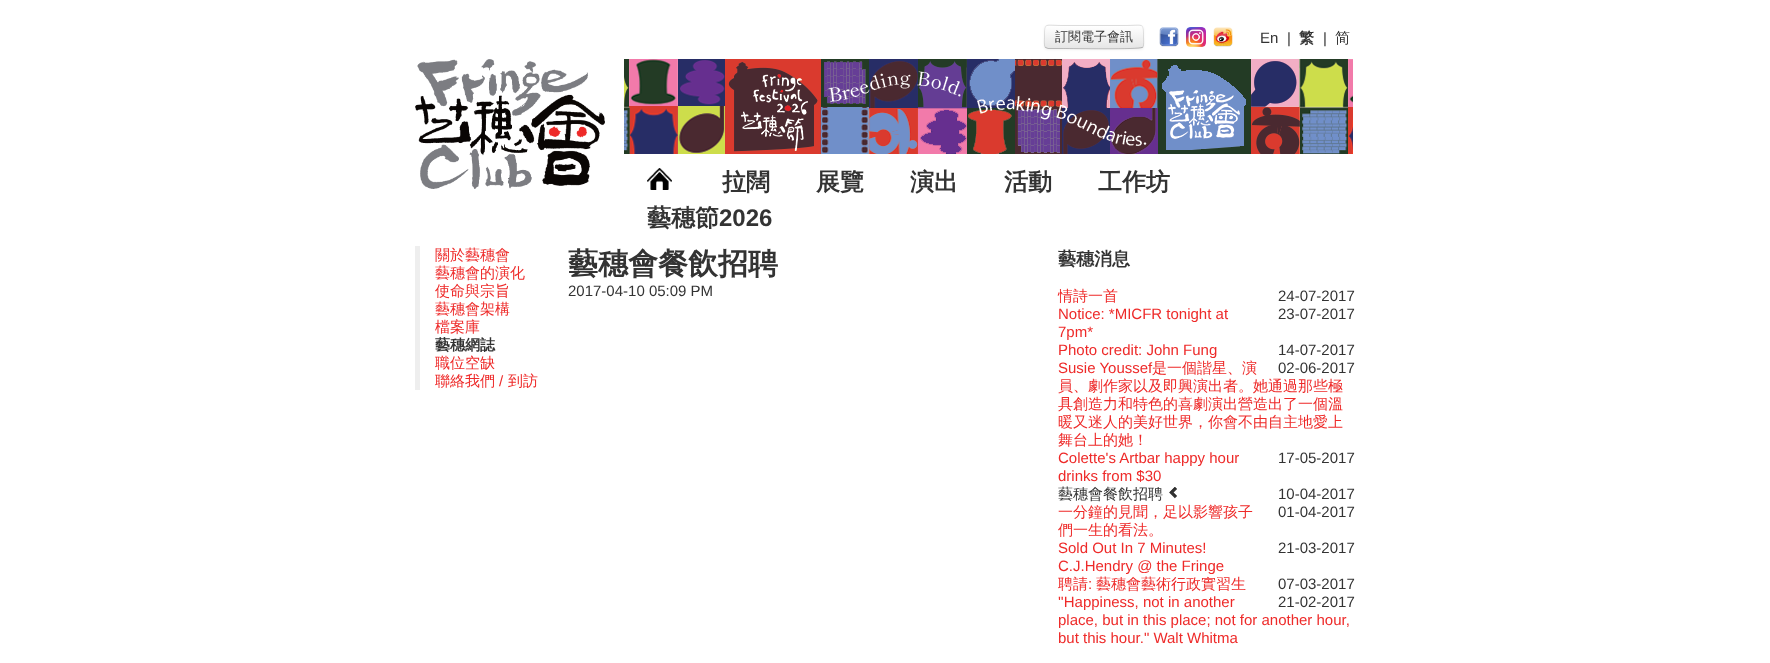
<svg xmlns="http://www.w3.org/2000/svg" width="1770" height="663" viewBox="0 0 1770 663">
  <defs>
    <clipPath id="clip1"><rect x="1044" y="25" width="100" height="24" rx="4"/></clipPath>
    <linearGradient id="g1" gradientUnits="userSpaceOnUse" x1="1094" y1="26" x2="1094" y2="48"><stop offset="0" stop-color="#fff"/><stop offset="1" stop-color="#e6e6e6"/></linearGradient>
  </defs>
  <rect width="100%" height="100%" fill="#fff"/>
  <rect x="1044" y="26" width="100" height="24" rx="4" fill="#0000000d" filter="blur(1px)"/>
  <rect x="1044" y="25" width="100" height="24" rx="4" fill="#f5f5f5"/>
  <g clip-path="url(#clip1)">
    <path d="M1044 26h100v22H1044z" fill="url(#g1)"/>
  </g>
  <path d="M1142.5 47.5H1142C1140 49.5 1072 48.5 1063.5 48.5H1048L1045.5 47.5" fill="none" stroke="#00000040"/>
  <path d="M1045.5 47.5C1043.5 45.5 1044.5 39.5 1044.5 37C1044.5 21.5 1045 25.5 1063.5 25.5H1124.5C1143 25.5 1143.5 21.5 1143.5 37C1143.5 39.5 1144.5 45.5 1142.5 47.5" fill="none" stroke="#0000001a"/>
  <image x="1159" y="27" width="20" height="20" href="img/1.png"/>
  <image x="1186" y="27" width="20" height="20" href="img/2.png"/>
  <image x="1213" y="27" width="20" height="20" href="img/3.png"/>
  <image x="415" y="59" width="190" height="130" href="img/4.png"/>
  <image x="624" y="59" width="729" height="95" href="img/5.png"/>
  <image x="647" y="168" width="25" height="22" href="img/6.png"/>
  <path d="M415 246h5v144H415z" fill="#eee"/>
  <image x="1169" y="487" width="8" height="12" href="img/7.png"/>
  <text x="1055" y="41" font-family="WenQuanYi Zen Hei" font-size="13" font-weight="500" fill="#333">訂閱電子會訊</text>
  <g font-family="Liberation Sans" font-size="15" fill="#333">
    <text x="1260" y="43">En</text>
    <text x="1287" y="43">|</text>
  </g>
  <text x="1299" y="43" font-family="WenQuanYi Zen Hei" font-size="15" font-weight="bold" fill="#333">繁</text>
  <text x="1323" y="43" font-family="Liberation Sans" font-size="15" fill="#333">|</text>
  <text x="1335" y="43" font-family="WenQuanYi Zen Hei" font-size="15" font-weight="500" fill="#333">简</text>
  <g font-family="WenQuanYi Zen Hei" font-size="24" font-weight="bold" fill="#333">
    <text x="722" y="190">拉闊</text>
    <text x="816" y="190">展覽</text>
    <text x="910" y="190">演出</text>
    <text x="1004" y="190">活動</text>
    <text x="1098" y="190">工作坊</text>
    <text x="647" y="226">藝穗節</text>
  </g>
  <text x="719" y="226" font-family="Liberation Sans" font-size="24" font-weight="bold" fill="#333">2026</text>
  <g font-family="WenQuanYi Zen Hei" font-size="15" font-weight="500" fill="#ee2a29">
    <text x="435" y="260">關於藝穗會</text>
    <text x="435" y="278">藝穗會的演化</text>
    <text x="435" y="296">使命與宗旨</text>
    <text x="435" y="314">藝穗會架構</text>
    <text x="435" y="332">檔案庫</text>
  </g>
  <text x="435" y="350" font-family="WenQuanYi Zen Hei" font-size="15" font-weight="bold" fill="#333">藝穗網誌</text>
  <g font-family="WenQuanYi Zen Hei" font-size="15" font-weight="500" fill="#ee2a29">
    <text x="435" y="368">職位空缺</text>
    <text x="435" y="386">聯絡我們</text>
  </g>
  <text x="499" y="386" font-family="Liberation Sans" font-size="15" fill="#ee2a29">/</text>
  <text x="508" y="386" font-family="WenQuanYi Zen Hei" font-size="15" font-weight="500" fill="#ee2a29">到訪</text>
  <text x="568" y="274" font-family="WenQuanYi Zen Hei" font-size="30" font-weight="bold" fill="#333">藝穗會餐飲招聘</text>
  <text x="568" y="296" font-family="Liberation Sans" font-size="15" fill="#333">2017-04-10 05:09 PM</text>
  <text x="1058" y="265" font-family="WenQuanYi Zen Hei" font-size="18" font-weight="bold" fill="#333">藝穗消息</text>
  <text x="1058" y="301" font-family="WenQuanYi Zen Hei" font-size="15" font-weight="500" fill="#ee2a29">情詩一首</text>
  <text x="1278" y="301" font-family="Liberation Sans" font-size="15" fill="#333">24-07-2017</text>
  <text x="1058" y="319" font-family="Liberation Sans" font-size="15" fill="#ee2a29">Notice: *MICFR tonight at</text>
  <text x="1278" y="319" font-family="Liberation Sans" font-size="15" fill="#333">23-07-2017</text>
  <g font-family="Liberation Sans" font-size="15" fill="#ee2a29">
    <text x="1058" y="337">7pm*</text>
    <text x="1058" y="355">Photo credit: John Fung</text>
  </g>
  <text x="1278" y="355" font-family="Liberation Sans" font-size="15" fill="#333">14-07-2017</text>
  <text x="1058" y="373" font-family="Liberation Sans" font-size="15" fill="#ee2a29">Susie Youssef</text>
  <text x="1152" y="373" font-family="WenQuanYi Zen Hei" font-size="15" font-weight="500" fill="#ee2a29">是一個諧星、演</text>
  <text x="1278" y="373" font-family="Liberation Sans" font-size="15" fill="#333">02-06-2017</text>
  <g font-family="WenQuanYi Zen Hei" font-size="15" font-weight="500" fill="#ee2a29">
    <text x="1058" y="391">員、劇作家以及即興演出者。她通過那些極</text>
    <text x="1058" y="409">具創造力和特色的喜劇演出營造出了一個溫</text>
    <text x="1058" y="427">暖又迷人的美好世界，你會不由自主地愛上</text>
    <text x="1058" y="445">舞台上的她！</text>
  </g>
  <text x="1058" y="463" font-family="Liberation Sans" font-size="15" fill="#ee2a29">Colette's Artbar happy hour</text>
  <text x="1278" y="463" font-family="Liberation Sans" font-size="15" fill="#333">17-05-2017</text>
  <text x="1058" y="481" font-family="Liberation Sans" font-size="15" fill="#ee2a29">drinks from $30</text>
  <text x="1058" y="499" font-family="WenQuanYi Zen Hei" font-size="15" font-weight="500" fill="#333">藝穗會餐飲招聘</text>
  <text x="1278" y="499" font-family="Liberation Sans" font-size="15" fill="#333">10-04-2017</text>
  <text x="1058" y="517" font-family="WenQuanYi Zen Hei" font-size="15" font-weight="500" fill="#ee2a29">一分鐘的見聞，足以影響孩子</text>
  <text x="1278" y="517" font-family="Liberation Sans" font-size="15" fill="#333">01-04-2017</text>
  <text x="1058" y="535" font-family="WenQuanYi Zen Hei" font-size="15" font-weight="500" fill="#ee2a29">們一生的看法。</text>
  <text x="1058" y="553" font-family="Liberation Sans" font-size="15" fill="#ee2a29">Sold Out In 7 Minutes!</text>
  <text x="1278" y="553" font-family="Liberation Sans" font-size="15" fill="#333">21-03-2017</text>
  <text x="1058" y="571" font-family="Liberation Sans" font-size="15" fill="#ee2a29">C.J.Hendry @ the Fringe</text>
  <text x="1058" y="589" font-family="WenQuanYi Zen Hei" font-size="15" font-weight="500" fill="#ee2a29">聘請</text>
  <text x="1088" y="589" font-family="Liberation Sans" font-size="15" fill="#ee2a29">:</text>
  <text x="1096" y="589" font-family="WenQuanYi Zen Hei" font-size="15" font-weight="500" fill="#ee2a29">藝穗會藝術行政實習生</text>
  <text x="1278" y="589" font-family="Liberation Sans" font-size="15" fill="#333">07-03-2017</text>
  <text x="1058" y="607" font-family="Liberation Sans" font-size="15" fill="#ee2a29">''Happiness, not in another</text>
  <text x="1278" y="607" font-family="Liberation Sans" font-size="15" fill="#333">21-02-2017</text>
  <g font-family="Liberation Sans" font-size="15" fill="#ee2a29">
    <text x="1058" y="625">place, but in this place; not for another hour,</text>
    <text x="1058" y="643">but this hour." Walt Whitma</text>
  </g>
</svg>
